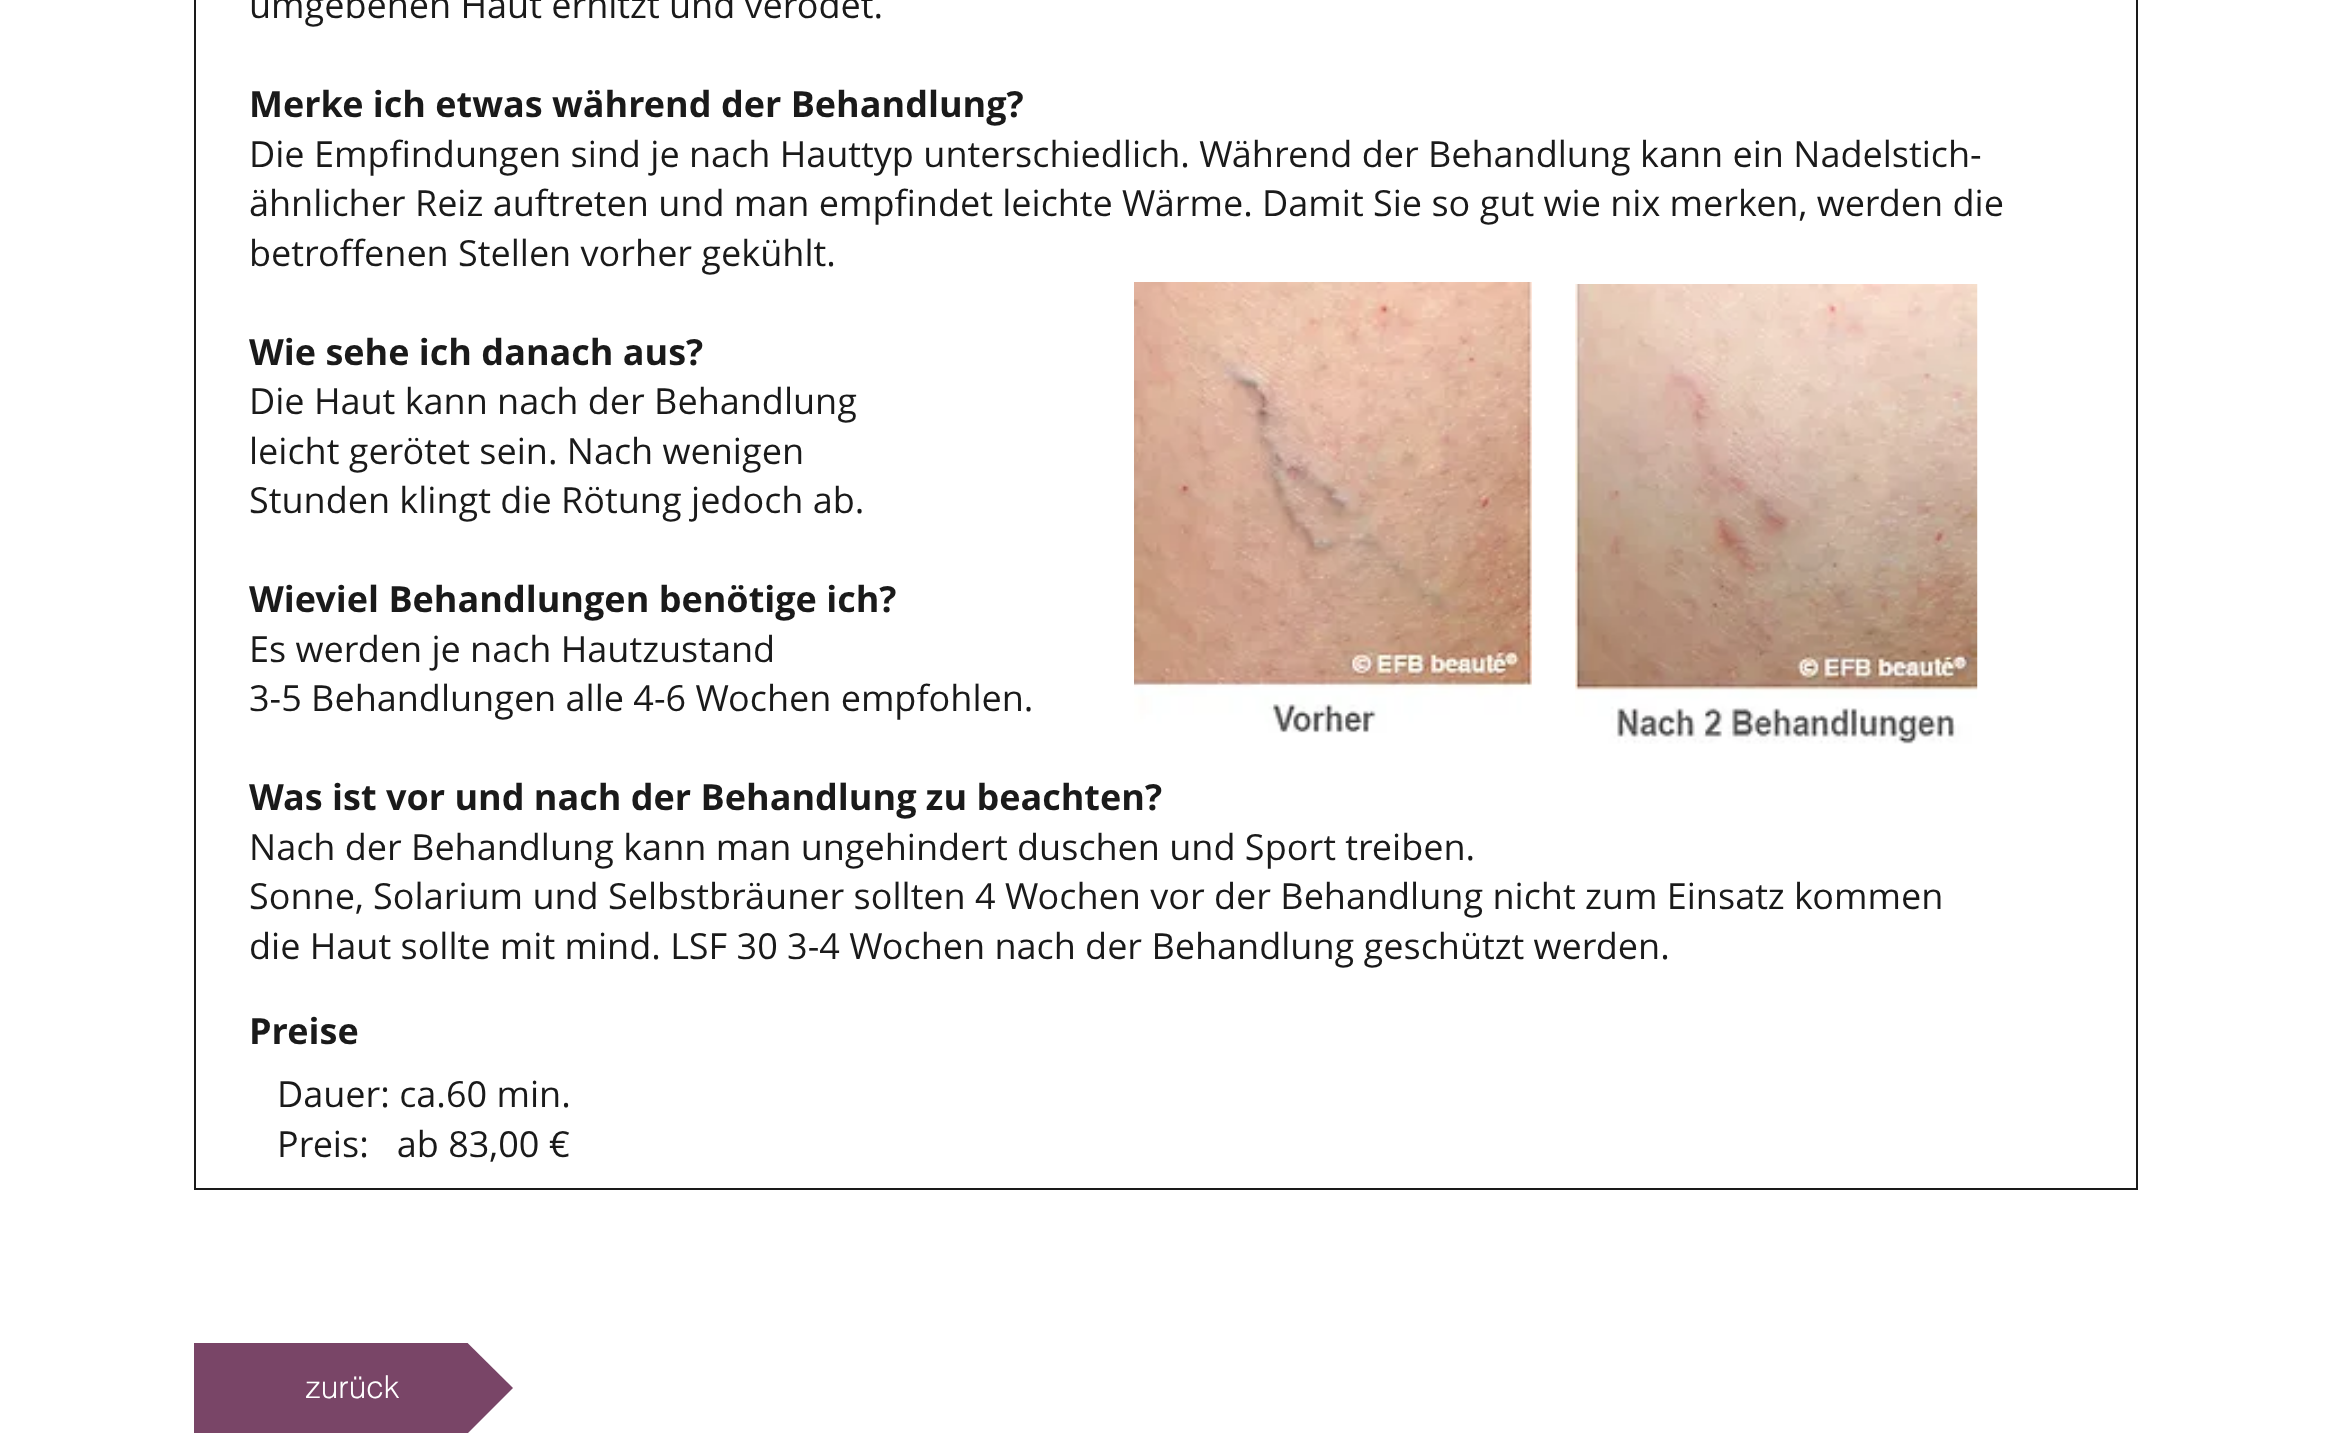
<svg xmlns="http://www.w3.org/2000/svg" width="2350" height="1447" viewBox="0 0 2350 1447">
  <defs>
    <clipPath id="clip1"><path d="M194 1343h319v90H194z"/></clipPath>
  </defs>
  <rect width="100%" height="100%" fill="#fff"/>
  <path d="M195 -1h1942v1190H195z" fill="none" stroke="#1a1a1a" stroke-width="2"/>
  <image x="1134" y="282" width="398" height="451" href="img/1.png"/>
  <image x="1575" y="284" width="403" height="460" href="img/2.png"/>
  <path d="M194 1343h206v90H194z" fill="#794567"/>
  <g clip-path="url(#clip1)">
    <path d="M513 1388H400V1276Z" fill="#794567"/>
    <path d="M400 1388H513L400 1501Z" fill="#794567"/>
  </g>
  <text x="249" y="18" font-family="Open Sans" font-size="36" fill="#1a1a1a">umgebenen Haut erhitzt und verödet.</text>
  <text x="249" y="117" font-family="Open Sans" font-size="36" font-weight="bold" fill="#1a1a1a">Merke ich etwas während der Behandlung?</text>
  <g font-family="Open Sans" font-size="36" fill="#1a1a1a">
    <text x="249" y="167">Die Empfindungen sind je nach Hauttyp unterschiedlich. Während der Behandlung kann ein Nadelstich-</text>
    <text x="249" y="216">ähnlicher Reiz auftreten und man empfindet leichte Wärme. Damit Sie so gut wie nix merken, werden die</text>
    <text x="249" y="266">betroffenen Stellen vorher gekühlt.</text>
  </g>
  <text x="249" y="365" font-family="Open Sans" font-size="36" font-weight="bold" fill="#1a1a1a">Wie sehe ich danach aus?</text>
  <g font-family="Open Sans" font-size="36" fill="#1a1a1a">
    <text x="249" y="414">Die Haut kann nach der Behandlung</text>
    <text x="249" y="464">leicht gerötet sein. Nach wenigen</text>
    <text x="249" y="513">Stunden klingt die Rötung jedoch ab.</text>
  </g>
  <text x="249" y="612" font-family="Open Sans" font-size="36" font-weight="bold" fill="#1a1a1a">Wieviel Behandlungen benötige ich?</text>
  <g font-family="Open Sans" font-size="36" fill="#1a1a1a">
    <text x="249" y="662">Es werden je nach Hautzustand</text>
    <text x="249" y="711">3-5 Behandlungen alle 4-6 Wochen empfohlen.</text>
  </g>
  <text x="249" y="810" font-family="Open Sans" font-size="36" font-weight="bold" fill="#1a1a1a">Was ist vor und nach der Behandlung zu beachten?</text>
  <g font-family="Open Sans" font-size="36" fill="#1a1a1a">
    <text x="249" y="860">Nach der Behandlung kann man ungehindert duschen und Sport treiben.</text>
    <text x="249" y="909">Sonne, Solarium und Selbstbräuner sollten 4 Wochen vor der Behandlung nicht zum Einsatz kommen</text>
    <text x="249" y="959">die Haut sollte mit mind. LSF 30 3-4 Wochen nach der Behandlung geschützt werden.</text>
    <text x="277" y="1107">Dauer: ca.60 min.</text>
    <text x="277" y="1157" xml:space="preserve">Preis:   ab 83,00 €</text>
  </g>
  <text x="249" y="1044" font-family="Open Sans" font-size="36" font-weight="bold" fill="#1a1a1a">Preise</text>
  <text x="305" y="1398" font-family="helvetica" font-size="31.5" font-weight="300" fill="#fff">zurück</text>
</svg>
